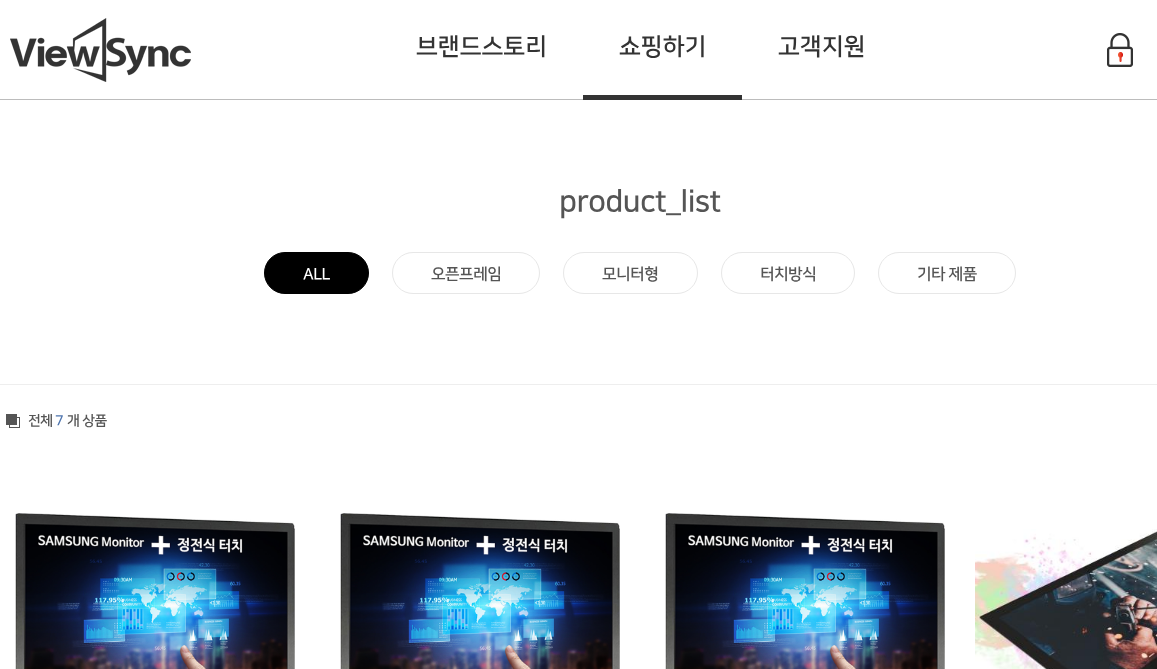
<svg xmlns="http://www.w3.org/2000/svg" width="1157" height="669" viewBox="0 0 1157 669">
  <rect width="100%" height="100%" fill="#fff"/>
  <path d="M0 99h1157v1H0z" fill="#bcbcbc"/>
  <image x="10" y="18" width="181" height="64" href="img/1.png"/>
  <path d="M583 95h159v5H583z" fill="#333"/>
  <image x="1107" y="33" width="26" height="34" href="img/2.png"/>
  <path d="M0 384h1157v1H0z" fill="#eee"/>
  <rect x="264.5" y="252.5" width="104" height="41" rx="20.5" fill="#000" stroke="#000"/>
  <rect x="392.5" y="252.5" width="147" height="41" rx="20.5" fill="none" stroke="#e7e7e7"/>
  <rect x="563.5" y="252.5" width="134" height="41" rx="20.5" fill="none" stroke="#e7e7e7"/>
  <rect x="721.5" y="252.5" width="133" height="41" rx="20.5" fill="none" stroke="#e7e7e7"/>
  <rect x="878.5" y="252.5" width="137" height="41" rx="20.5" fill="none" stroke="#e7e7e7"/>
  <image x="6" y="414" width="14" height="14" href="img/3.png"/>
  <image x="15" y="513" width="280" height="156" href="img/4.png"/>
  <image x="340" y="513" width="280" height="156" href="img/5.png"/>
  <image x="665" y="513" width="280" height="156" href="img/4.png"/>
  <image x="975" y="529" width="182" height="140" href="img/6.png"/>
  <g font-family="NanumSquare" font-size="24" font-weight="bold" fill="#333">
    <text x="416" y="54">브랜드스토리</text>
    <text x="619" y="54">쇼핑하기</text>
    <text x="778" y="54">고객지원</text>
  </g>
  <text x="559" y="211" font-family="NanumSquare" font-size="30" font-weight="bold" letter-spacing="-0.5" fill="#555">product_list</text>
  <text x="303" y="279" font-family="NanumSquare" font-size="16" font-weight="bold" letter-spacing="-0.5" fill="#fff">ALL</text>
  <g font-family="NanumSquare" font-size="16" font-weight="bold" letter-spacing="-0.5" fill="#555">
    <text x="431" y="279">오픈프레임</text>
    <text x="602" y="279">모니터형</text>
    <text x="760" y="279">터치방식</text>
    <text x="917" y="279">기타 제품</text>
  </g>
  <text x="28" y="425" font-family="NanumSquare" font-size="14" font-weight="bold" letter-spacing="-0.5" fill="#555">전체</text>
  <text x="55" y="425" font-family="NanumSquare" font-size="14" font-weight="bold" letter-spacing="-0.5" fill="#5076af">7</text>
  <text x="67" y="425" font-family="NanumSquare" font-size="14" font-weight="bold" letter-spacing="-0.5" fill="#555">개 상품</text>
</svg>
